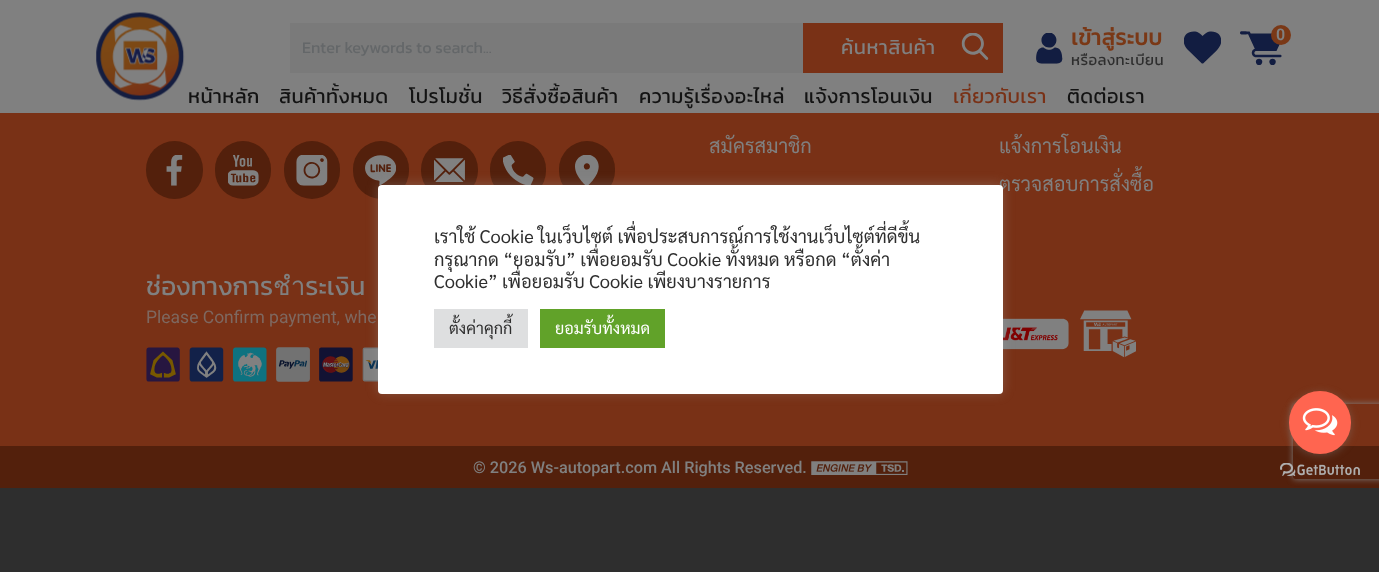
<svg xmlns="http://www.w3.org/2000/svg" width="1379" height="572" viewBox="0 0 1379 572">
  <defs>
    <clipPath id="clip1"><path d="M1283 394H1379V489H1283ZM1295.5 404H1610.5C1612 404 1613 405 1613 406.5V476.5C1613 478 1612 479 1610.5 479H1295.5C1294 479 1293 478 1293 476.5V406.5C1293 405 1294 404 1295.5 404Z" clip-rule="evenodd"/></clipPath>
    <clipPath id="clip2"><path d="M1071 25h94v45H1071z"/></clipPath>
  </defs>
  <rect width="100%" height="100%" fill="#2e2e2e"/>
  <path d="M0 0h1379v113H0z" fill="#808080"/>
  <image x="96" y="12" width="89" height="89" href="img/1.png"/>
  <path d="M290 23h513v50H290z" fill="#7a7a7a"/>
  <path d="M803 23h200v50H803z" fill="#793116"/>
  <image x="961" y="33" width="28" height="27" href="img/2.png"/>
  <image x="1036" y="33" width="27" height="31" href="img/3.png"/>
  <image x="1184" y="31" width="37" height="33" href="img/4.png"/>
  <image x="1240" y="31" width="42" height="34" href="img/5.png"/>
  <circle cx="1281" cy="35" r="10" fill="#7a3816"/>
  <path d="M0 113h1379v333H0z" fill="#793116"/>
  <rect x="146" y="141" width="57" height="58" rx="28.5" fill="#53200c"/>
  <image x="166" y="155" width="17" height="31" href="img/6.png"/>
  <rect x="215" y="141" width="56" height="58" rx="28" fill="#53200c"/>
  <image x="228" y="155" width="31" height="31" href="img/7.png"/>
  <rect x="284" y="141" width="56" height="58" rx="28" fill="#53200c"/>
  <image x="296" y="155" width="32" height="31" href="img/8.png"/>
  <rect x="353" y="141" width="56" height="58" rx="28" fill="#53200c"/>
  <image x="365" y="155" width="31" height="30" href="img/9.png"/>
  <rect x="421" y="141" width="57" height="58" rx="28.5" fill="#53200c"/>
  <image x="434" y="158" width="31" height="24" href="img/10.png"/>
  <rect x="490" y="141" width="56" height="58" rx="28" fill="#53200c"/>
  <image x="503" y="155" width="31" height="30" href="img/11.png"/>
  <rect x="559" y="141" width="56" height="58" rx="28" fill="#53200c"/>
  <image x="575" y="155" width="24" height="30" href="img/12.png"/>
  <image x="146" y="347" width="232" height="35" href="img/13.png"/>
  <image x="1003" y="318" width="66" height="32" href="img/14.png"/>
  <image x="1080" y="310" width="56" height="48" href="img/15.png"/>
  <path d="M0 446h1379v42H0z" fill="#53200c"/>
  <image x="811" y="461" width="97" height="14" href="img/16.png"/>
  <rect x="378" y="184" width="625" height="209" rx="4" fill="#acabab4d" filter="blur(6px)"/>
  <g clip-path="url(#clip1)">
    <rect x="1293" y="404" width="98" height="75" rx="2.5" fill="#808080" filter="blur(3px)"/>
  </g>
  <image x="1280" y="463" width="80" height="13" href="img/18.png"/>
  <rect x="1289" y="393" width="62" height="62" rx="31" fill="#88888866" filter="blur(4.5px)"/>
  <rect x="1289" y="391" width="62" height="63" rx="31" fill="#ff6550"/>
  <image x="1302" y="408" width="36" height="28" href="img/17.png"/>
  <text x="302" y="53" font-family="Kanit" font-size="16.25" fill="#646769">Enter keywords to search...</text>
  <text x="841" y="54" font-family="Kanit" font-size="20" letter-spacing="0.5" fill="#808080">ค้นหาสินค้า</text>
  <g clip-path="url(#clip2)">
    <text x="1071" y="45" font-family="Kanit" font-size="22" font-weight="bold" letter-spacing="0.4" fill="#7a3816">เข้าสู่ระบบ</text>
  </g>
  <text x="1071" y="65" font-family="Kanit" font-size="15" letter-spacing="0.4" fill="#2e2e2e">หรือลงทะเบียน</text>
  <text x="1276" y="40" font-family="Roboto" font-size="16" font-weight="600" fill="#808080">0</text>
  <g font-family="Kanit" font-size="20" letter-spacing="0.4" fill="#131313">
    <text x="188" y="103">หน้าหลัก</text>
    <text x="279" y="103">สินค้าทั้งหมด</text>
    <text x="409" y="103">โปรโมชั่น</text>
    <text x="502" y="103">วิธีสั่งซื้อสินค้า</text>
    <text x="639" y="103">ความรู้เรื่องอะไหล่</text>
    <text x="804" y="103">แจ้งการโอนเงิน</text>
  </g>
  <text x="953" y="103" font-family="Kanit" font-size="20" letter-spacing="0.4" fill="#793116">เกี่ยวกับเรา</text>
  <text x="1067" y="103" font-family="Kanit" font-size="20" letter-spacing="0.4" fill="#131313">ติดต่อเรา</text>
  <g font-family="Sarabun" font-size="20" fill="#808080">
    <text x="709" y="153">สมัครสมาชิก</text>
    <text x="999" y="153">แจ้งการโอนเงิน</text>
    <text x="999" y="191">ตรวจสอบการสั่งซื้อ</text>
  </g>
  <text x="146" y="295" font-family="Kanit" font-size="26" fill="#808080">ช่องทางการชำระเงิน</text>
  <text x="146" y="323" font-family="Roboto" font-size="17.5" fill="#7e6860">Please Confirm payment, whe</text>
  <text x="473" y="473" font-family="Roboto" font-size="16.25" font-weight="500" fill="#808080">© 2026 Ws-autopart.com All Rights Reserved.</text>
  <rect x="378" y="185" width="625" height="209" rx="4" fill="#fff"/>
  <g font-family="Sarabun" font-size="18.3" fill="#2e2e2e">
    <text x="434" y="243">เราใช้ Cookie ในเว็บไซต์ เพื่อประสบการณ์การใช้งานเว็บไซต์ที่ดีขึ้น</text>
    <text x="434" y="266">กรุณากด “ยอมรับ” เพื่อยอมรับ Cookie ทั้งหมด หรือกด “ตั้งค่า</text>
    <text x="434" y="288">Cookie” เพื่อยอมรับ Cookie เพียงบางรายการ</text>
  </g>
  <path d="M434 309h94v39H434z" fill="#dedfe0"/>
  <text x="449" y="334" font-family="Sarabun" font-size="16.25" fill="#2e2e2e">ตั้งค่าคุกกี้</text>
  <path d="M540 309h125v39H540z" fill="#61a229"/>
  <text x="555" y="334" font-family="Sarabun" font-size="16.25" fill="#fff">ยอมรับทั้งหมด</text>
</svg>
